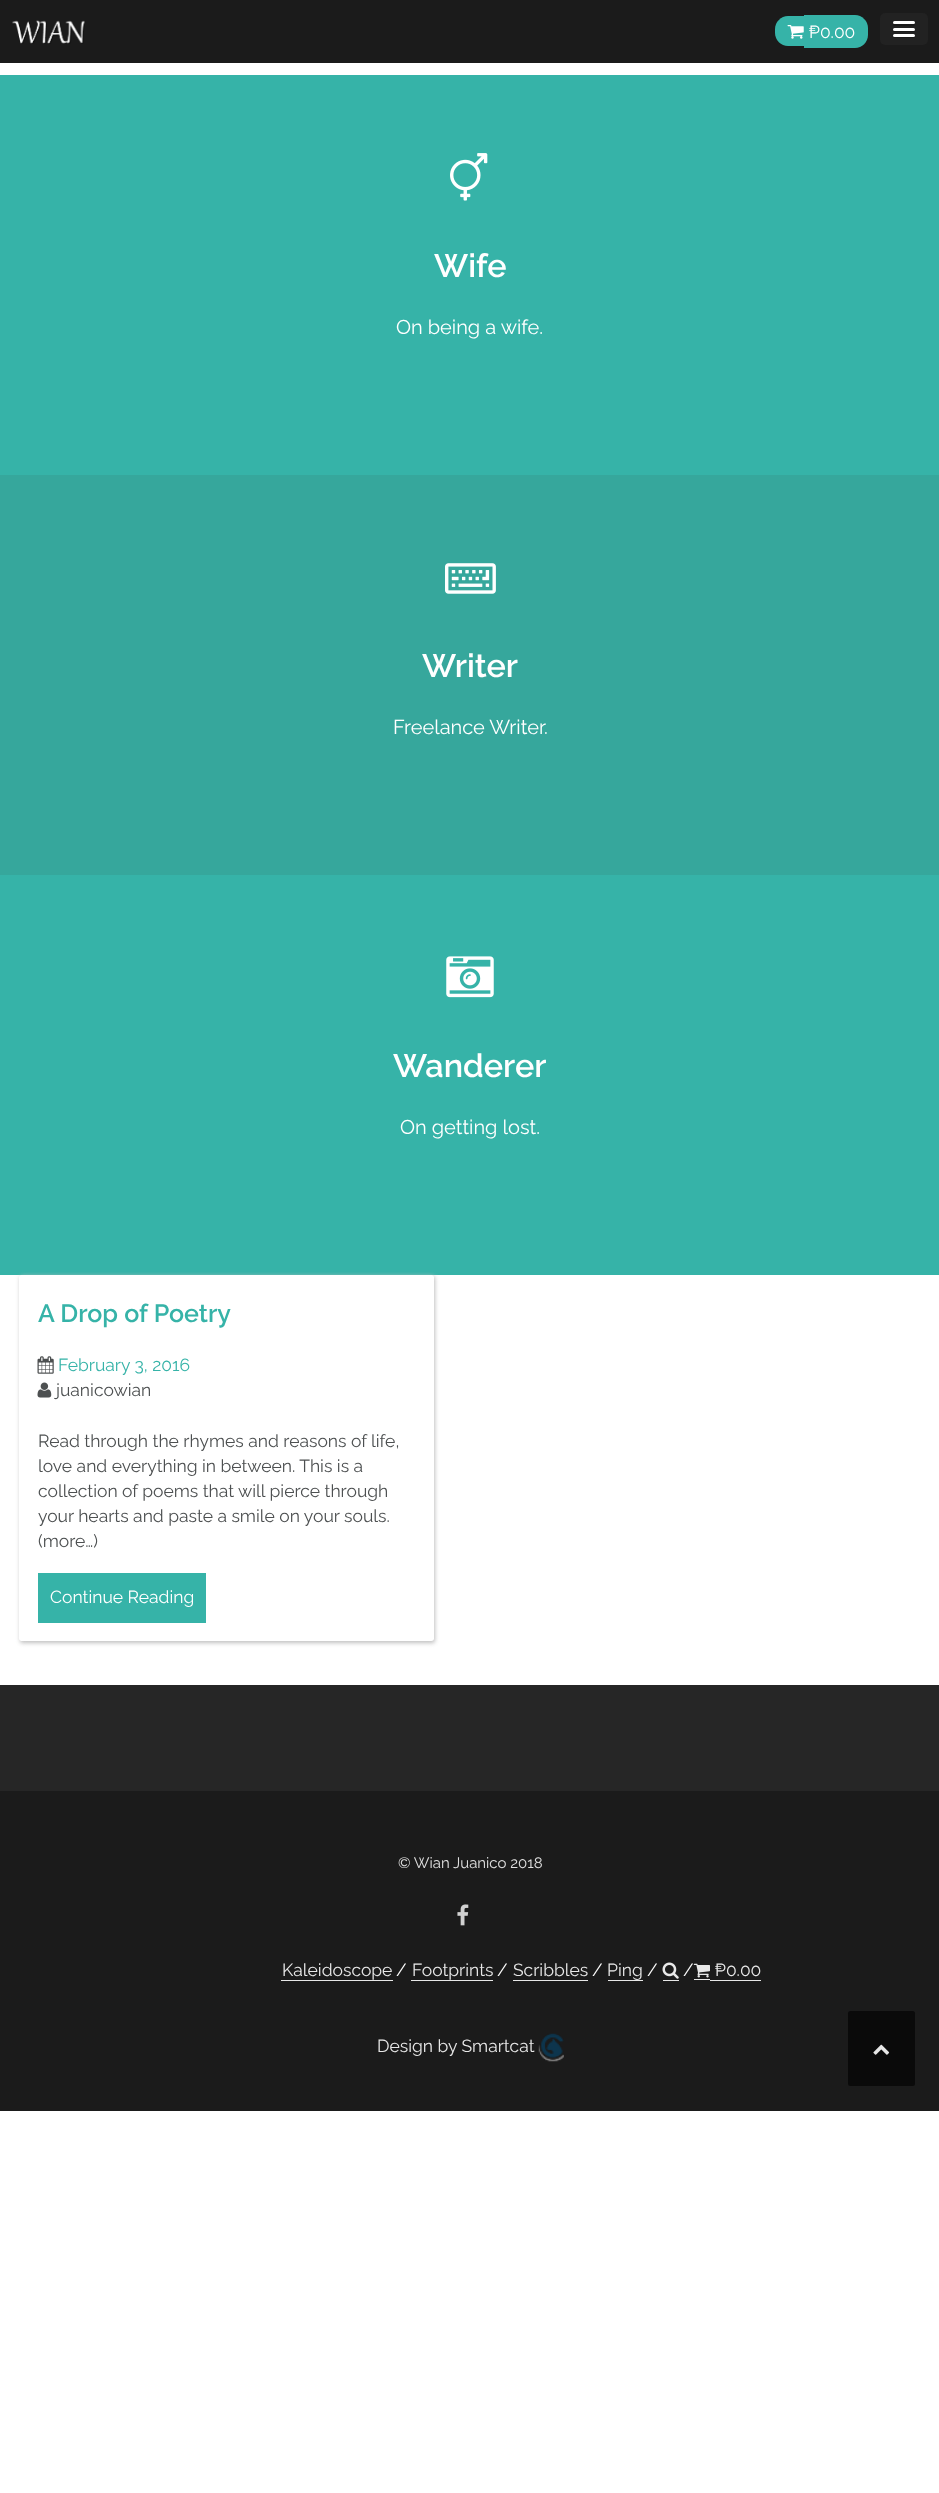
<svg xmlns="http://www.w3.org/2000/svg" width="939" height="2493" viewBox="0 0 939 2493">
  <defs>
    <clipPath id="clip1"><path d="M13 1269H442V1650H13ZM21.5 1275H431.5C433 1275 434 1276 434 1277.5V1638.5C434 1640 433 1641 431.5 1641H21.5C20 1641 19 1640 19 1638.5V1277.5C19 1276 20 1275 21.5 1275Z" clip-rule="evenodd"/></clipPath>
  </defs>
  <rect width="100%" height="100%" fill="#fff"/>
  <path d="M0 0h939v63H0z" fill="#1b1b1b"/>
  <image x="12" y="20" width="73" height="24" href="img/1.png"/>
  <path d="M788 16H804V46H788C781 46 775 40 775 33V29C775 22 781 16 788 16Z" fill="#36b3a8"/>
  <path d="M804 15h16v33H804z" fill="#36b3a8"/>
  <path d="M820 15H855C862 15 868 21 868 28V35C868 42 862 48 855 48H820Z" fill="#36b3a8"/>
  <image x="787" y="25" width="17" height="14" href="img/2.png"/>
  <rect x="880" y="13" width="48" height="32" rx="5" fill="#222"/>
  <path d="M893.5 23.5C891.5 26.5 897 26 897.5 26H904C906 26 914 26.5 914.5 25.5C915 24.5 915 24 914.5 23.5C914 24 894.5 24 893.5 23.5Z" fill="#1a1a1a"/>
  <rect x="893" y="21" width="22" height="3" rx="1.5" fill="#fff"/>
  <path d="M893 30C892 32.5 897 32 897.5 32H910.5C910.5 32 917 32.5 914.5 29.5L914 30Z" fill="#1a1a1a"/>
  <rect x="893" y="28" width="22" height="3" rx="1.5" fill="#fff"/>
  <path d="M893 36C892.5 38.5 897 38 897.5 38H910.5C911 38 916.5 38.5 915 35.5L914 36Z" fill="#1a1a1a"/>
  <rect x="893" y="34" width="22" height="3" rx="1.5" fill="#fff"/>
  <path d="M0 75h939v1200H0z" fill="#36b3a8"/>
  <image x="450" y="153" width="38" height="48" href="img/3.png"/>
  <path d="M0 475h939v400H0z" fill="#36a79c"/>
  <image x="445" y="563" width="51" height="31" href="img/4.png"/>
  <image x="446" y="956" width="48" height="42" href="img/5.png"/>
  <g clip-path="url(#clip1)">
    <rect x="20" y="1276" width="415" height="367" rx="2.5" fill="#bfbfbf" filter="blur(2px)"/>
  </g>
  <image x="37" y="1356" width="17" height="18" href="img/6.png"/>
  <image x="37" y="1382" width="15" height="16" href="img/7.png"/>
  <path d="M38 1573h168v50H38z" fill="#36b3a8"/>
  <path d="M0 1685h939v106H0z" fill="#262626"/>
  <path d="M0 1791h939v320H0z" fill="#1b1b1b"/>
  <image x="457" y="1904" width="12" height="22" href="img/8.png"/>
  <path d="M281 1980h112v1H281z" fill="#e8e8e8"/>
  <path d="M411 1980h82v1H411z" fill="#e8e8e8"/>
  <path d="M513 1980h75v1H513z" fill="#e8e8e8"/>
  <path d="M608 1980h35v1H608z" fill="#e8e8e8"/>
  <path d="M663 1980h16v1H663z" fill="#e8e8e8"/>
  <image x="662" y="1962" width="17" height="17" href="img/9.png"/>
  <path d="M694 1979h16v1H694z" fill="#e8e8e8"/>
  <path d="M710 1980h51v1H710z" fill="#e8e8e8"/>
  <image x="538" y="2033" width="26" height="29" href="img/11.png"/>
  <rect x="848" y="2011" width="67" height="75" rx="2.5" fill="#0a0a0a"/>
  <image x="873" y="2044" width="17" height="11" href="img/12.png"/>
  <text x="809" y="38" font-family="Raleway" font-size="17.5" fill="#fff">₱0.00</text>
  <text x="434" y="277" font-family="Raleway" font-size="32.5" font-weight="600" fill="#fff">Wife</text>
  <text x="396" y="334" font-family="Raleway" font-size="20" fill="#fff">On being a wife.</text>
  <text x="422" y="677" font-family="Raleway" font-size="32.5" font-weight="600" fill="#fff">Writer</text>
  <text x="393" y="734" font-family="Raleway" font-size="20" fill="#fff">Freelance Writer.</text>
  <text x="393" y="1077" font-family="Raleway" font-size="32.5" font-weight="600" fill="#fff">Wanderer</text>
  <text x="400" y="1134" font-family="Raleway" font-size="20" fill="#fff">On getting lost.</text>
  <text x="38" y="1322" font-family="Raleway" font-size="25" font-weight="600" fill="#36b3a8">A Drop of Poetry</text>
  <text x="58" y="1371" font-family="Raleway" font-size="17.5" fill="#36b3a8">February 3, 2016</text>
  <g font-family="Raleway" font-size="17.5" fill="#4d5051">
    <text x="56" y="1396">juanicowian</text>
    <text x="38" y="1447">Read through the rhymes and reasons of life,</text>
    <text x="38" y="1472">love and everything in between. This is a</text>
    <text x="38" y="1497">collection of poems that will pierce through</text>
    <text x="38" y="1522">your hearts and paste a smile on your souls.</text>
    <text x="38" y="1547">(more…)</text>
  </g>
  <text x="50" y="1603" font-family="Raleway" font-size="17.5" fill="#fff">Continue Reading</text>
  <text x="398" y="1868" font-family="Raleway" font-size="15" fill="#e1e1e1">© Wian Juanico 2018</text>
  <text x="282" y="1976" font-family="Raleway" font-size="17.5" fill="#e8e8e8">Kaleidoscope</text>
  <text x="396" y="1976" font-family="Raleway" font-size="17.5" fill="#fff">/</text>
  <text x="412" y="1976" font-family="Raleway" font-size="17.5" fill="#e8e8e8">Footprints</text>
  <text x="497" y="1976" font-family="Raleway" font-size="17.5" fill="#fff">/</text>
  <text x="513" y="1976" font-family="Raleway" font-size="17.5" fill="#e8e8e8">Scribbles</text>
  <text x="592" y="1976" font-family="Raleway" font-size="17.5" fill="#fff">/</text>
  <text x="607" y="1976" font-family="Raleway" font-size="17.5" fill="#e8e8e8">Ping</text>
  <g font-family="Raleway" font-size="17.5" fill="#fff">
    <text x="647" y="1976">/</text>
    <text x="683" y="1976">/</text>
  </g>
  <image x="693" y="1963" width="17" height="15" href="img/10.png"/>
  <g font-family="Raleway" font-size="17.5" fill="#e8e8e8">
    <text x="715" y="1976">₱0.00</text>
    <text x="377" y="2052">Design by Smartcat</text>
  </g>
</svg>
